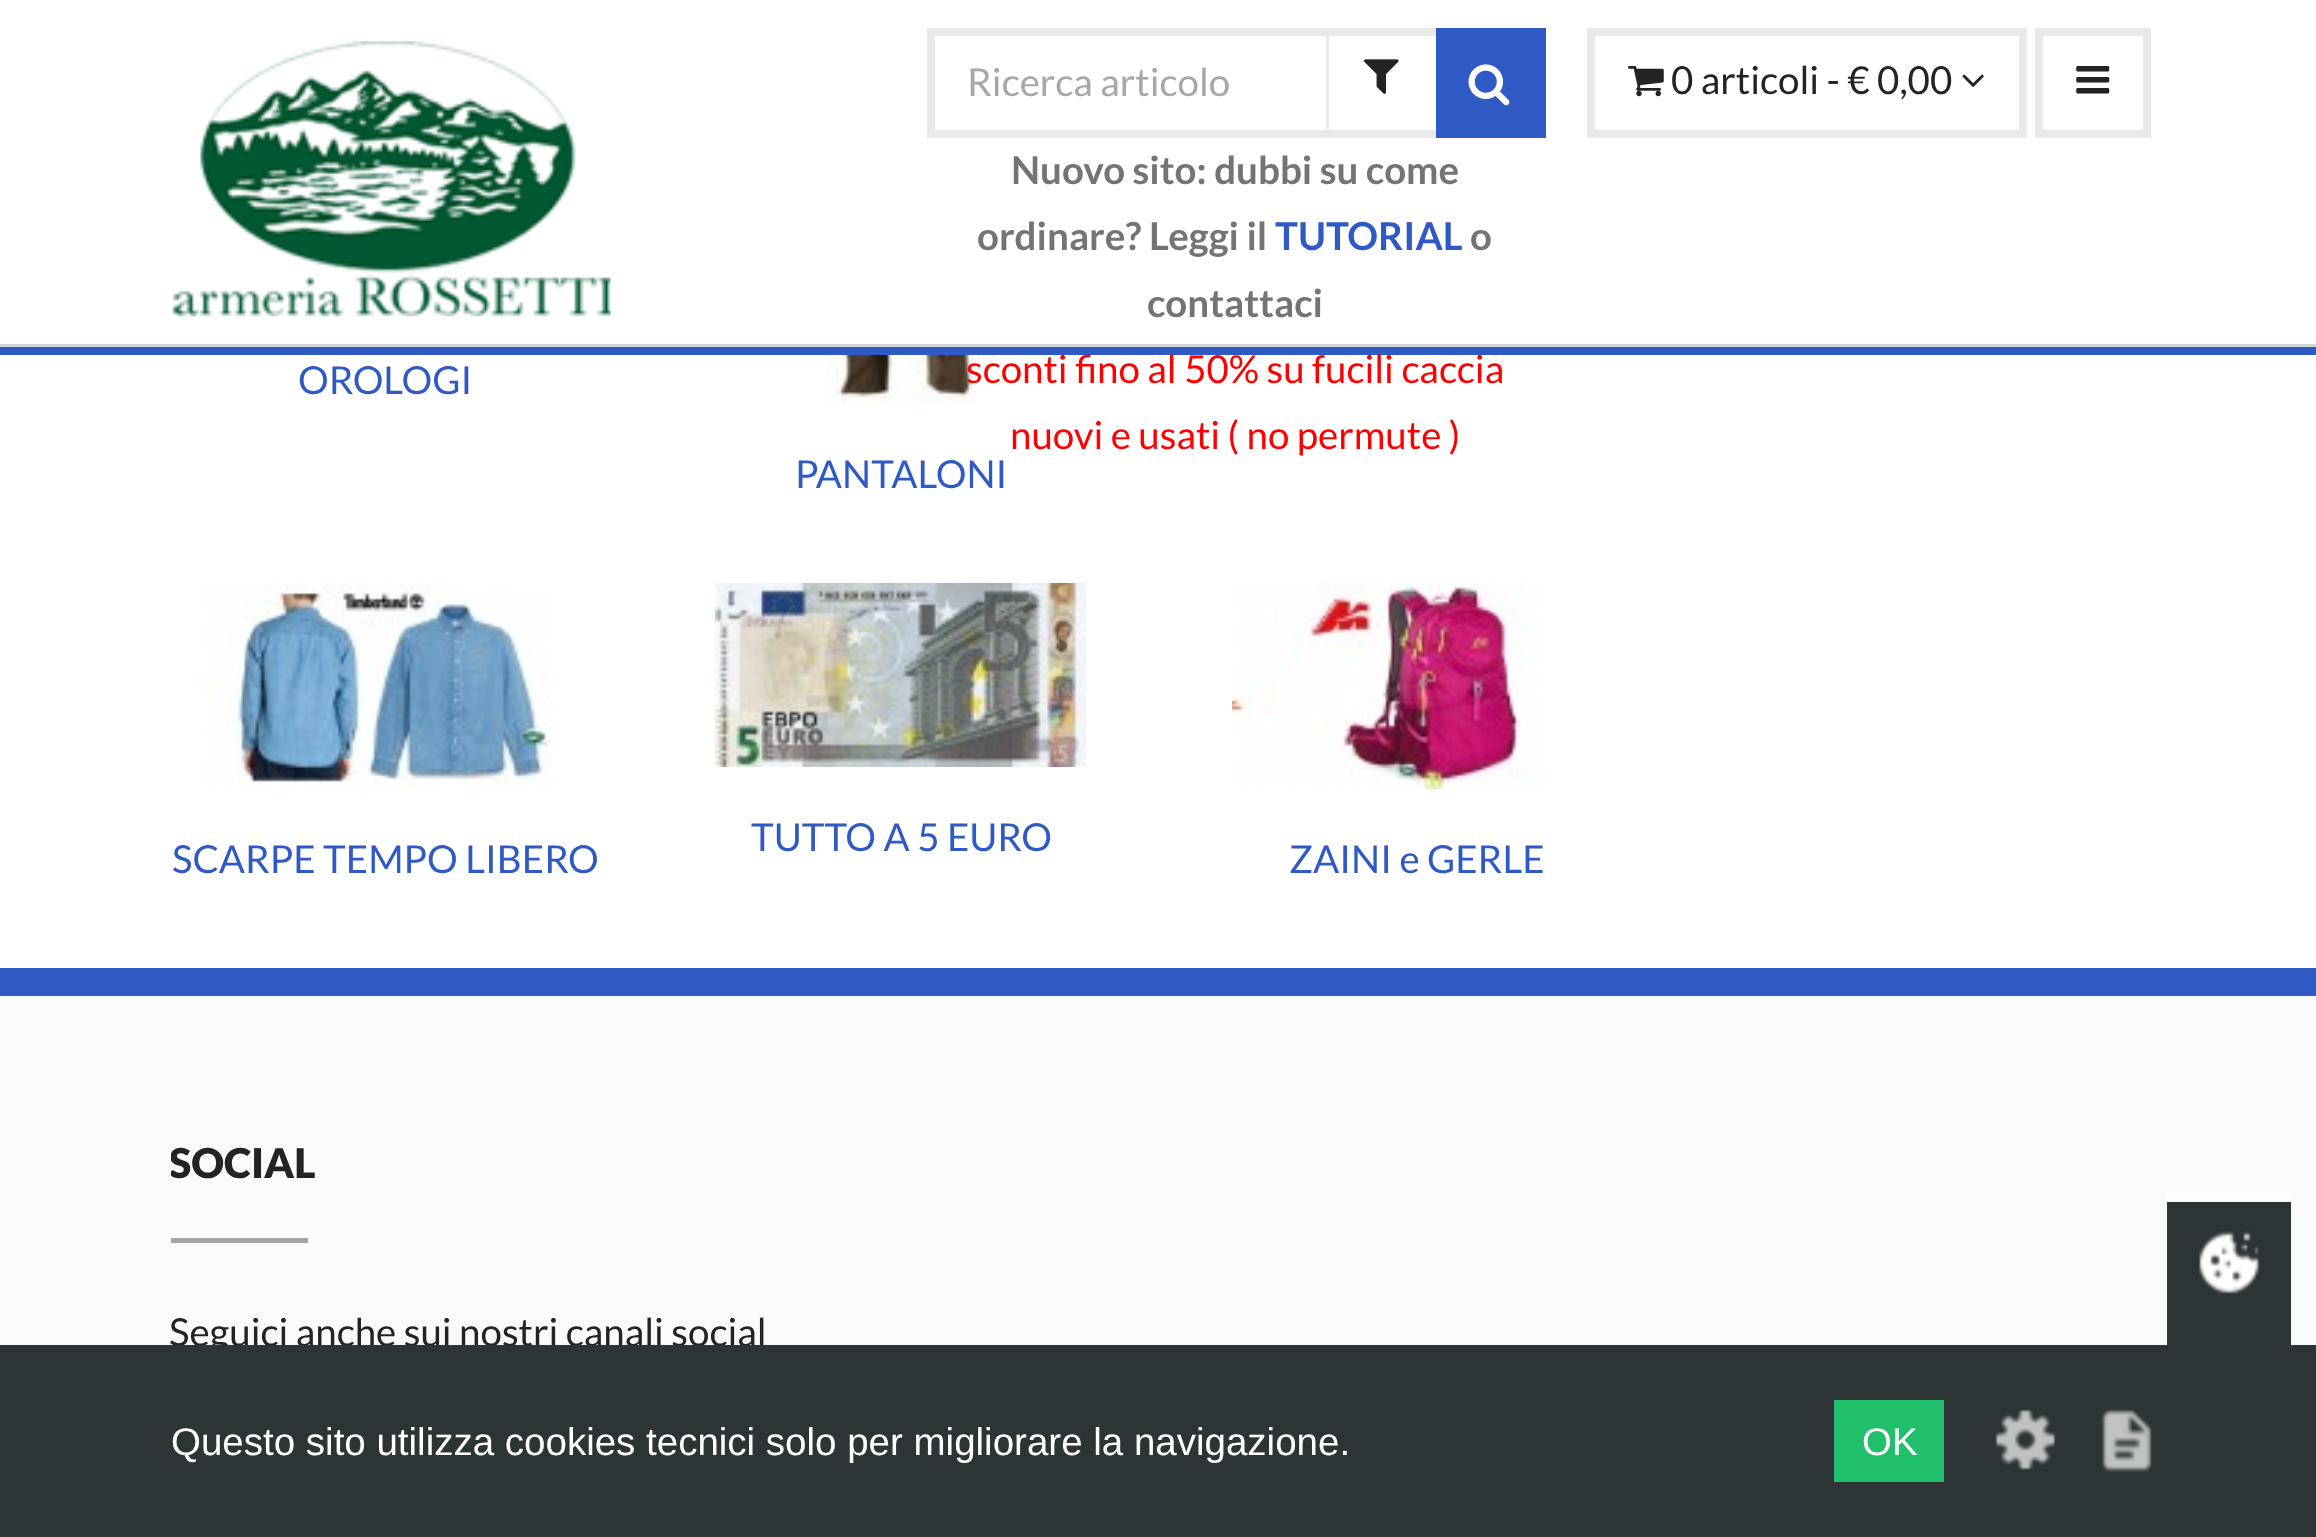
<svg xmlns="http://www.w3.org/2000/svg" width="2316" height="1537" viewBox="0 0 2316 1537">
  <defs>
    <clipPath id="clip1"><path d="M171 1133h1980v110H171z"/></clipPath>
  </defs>
  <rect width="100%" height="100%" fill="#fff"/>
  <path d="M0 347h2316v8H0z" fill="#2f59c5"/>
  <image x="172" y="41" width="439" height="276" href="img/1.png"/>
  <path d="M931 32h611v102H931z" fill="none" stroke="#e9e9e9" stroke-width="8"/>
  <path d="M1326 36h3v93H1326z" fill="#e9e9e9"/>
  <image x="1364" y="59" width="35" height="35" href="img/2.png"/>
  <path d="M1436 28h110v110H1436z" fill="#2f59c5"/>
  <image x="1468" y="64" width="42" height="42" href="img/3.png"/>
  <path d="M1591 32h432v102H1591z" fill="none" stroke="#e9e9e9" stroke-width="8"/>
  <image x="1628" y="66" width="36" height="31" href="img/4.png"/>
  <image x="1962" y="74" width="22" height="13" href="img/5.png"/>
  <path d="M2039 32h108v102H2039z" fill="none" stroke="#e9e9e9" stroke-width="8"/>
  <image x="2076" y="66" width="34" height="28" href="img/6.png"/>
  <path d="M0 344h2316v3H0z" fill="#d3d5d7"/>
  <image x="825" y="355" width="151" height="49" href="img/7.png"/>
  <image x="715" y="582" width="372" height="185" href="img/8.png"/>
  <image x="201" y="583" width="352" height="206" href="img/9.png"/>
  <image x="1232" y="583" width="309" height="206" href="img/10.png"/>
  <path d="M0 996h2316v349H0z" fill="#f9fafb"/>
  <path d="M0 968h2316v28H0z" fill="#2f59c5"/>
  <path d="M171 1238h137v5H171z" fill="#a3a4a5"/>
  <path d="M2167 1202h124v143H2167z" fill="#2d3436"/>
  <path d="M2167 1194h124v8H2167z" fill="#fff"/>
  <image x="2199" y="1231" width="61" height="63" href="img/11.png"/>
  <text x="967" y="96" font-family="Lato" font-size="38.5" fill="#a6a7a8">Ricerca articolo</text>
  <g font-family="Lato" font-size="38.5" font-weight="bold" fill="#737475">
    <text x="1011" y="184">Nuovo sito: dubbi su come</text>
    <text x="977" y="250">ordinare? Leggi il</text>
  </g>
  <text x="1275" y="250" font-family="Lato" font-size="38.5" font-weight="bold" fill="#2f59c5">TUTORIAL</text>
  <g font-family="Lato" font-size="38.5" font-weight="bold" fill="#737475">
    <text x="1470" y="250">o</text>
    <text x="1147" y="317">contattaci</text>
  </g>
  <g font-family="Lato" font-size="38.5" fill="#f00">
    <text x="966" y="383">sconti fino al 50% su fucili caccia</text>
    <text x="1010" y="449">nuovi e usati ( no permute )</text>
  </g>
  <text x="1671" y="94" font-family="Lato" font-size="38.5" fill="#232323">0 articoli - € 0,00</text>
  <g font-family="Lato" font-size="38.5" fill="#2f59c5">
    <text x="298" y="394">OROLOGI</text>
    <text x="795" y="488">PANTALONI</text>
    <text x="751" y="851">TUTTO A 5 EURO</text>
    <text x="172" y="873">SCARPE TEMPO LIBERO</text>
    <text x="1289" y="873">ZAINI e GERLE</text>
  </g>
  <g clip-path="url(#clip1)">
    <text x="169" y="1178" font-family="Lato" font-size="41" font-weight="900" fill="#232323">SOCIAL</text>
  </g>
  <text x="169" y="1346" font-family="Lato" font-size="38.5" fill="#232323">Seguici anche sui nostri canali social</text>
  <path d="M0 1345h2316v192H0z" fill="#2d3436"/>
  <text x="171" y="1455" font-family="Liberation Sans" font-size="38.5" fill="#fff">Questo sito utilizza cookies tecnici solo per migliorare la navigazione.</text>
  <path d="M1834 1400h110v82H1834z" fill="#20bf6b"/>
  <text x="1862" y="1455" font-family="Liberation Sans" font-size="38.5" fill="#fff">OK</text>
  <image x="1995" y="1409" width="61" height="61" href="img/12.png"/>
  <image x="2101" y="1409" width="51" height="63" href="img/13.png"/>
</svg>
